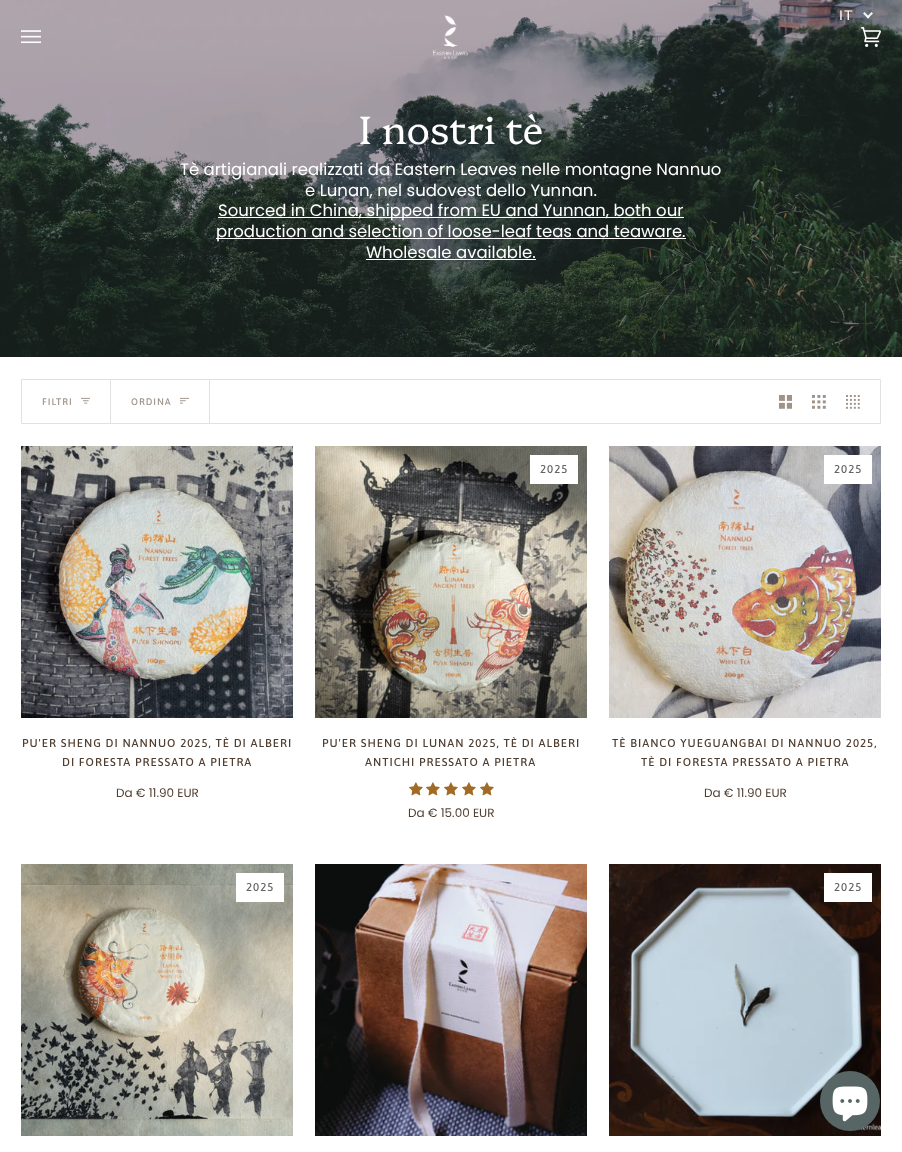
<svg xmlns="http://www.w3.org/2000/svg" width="902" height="1152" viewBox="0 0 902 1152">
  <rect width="100%" height="100%" fill="#fff"/>
  <image x="0" y="0" width="902" height="357" href="img/4.png"/>
  <path d="M871.5 12L873 13.5L868 18.5L866.5 17Z" fill="#ffffffe6"/>
  <path d="M864.5 12L869.5 17L868 18.5L863 13.5Z" fill="#ffffffe6"/>
  <image x="21" y="30" width="20" height="14" href="img/1.png"/>
  <image x="433" y="15" width="35" height="44" href="img/2.png"/>
  <image x="861" y="27" width="20" height="20" href="img/3.png"/>
  <path d="M218 217h466v1H218z" fill="#fff"/>
  <path d="M216 238h470v1H216z" fill="#fff"/>
  <path d="M366 259h170v1H366z" fill="#fff"/>
  <path d="M21.5 379.5h859v44H21.5z" fill="none" stroke="#e4e0dd"/>
  <path d="M110 380h1v43H110z" fill="#e4e0dd"/>
  <image x="81" y="397" width="9" height="7" href="img/5.png"/>
  <path d="M209 380h1v43H209z" fill="#e4e0dd"/>
  <image x="180" y="397" width="9" height="7" href="img/6.png"/>
  <image x="779" y="395" width="13" height="14" href="img/7.png"/>
  <image x="812" y="395" width="14" height="14" href="img/8.png"/>
  <image x="846" y="395" width="14" height="14" href="img/9.png"/>
  <image x="21" y="446" width="272" height="272" href="img/10.png"/>
  <image x="315" y="446" width="272" height="272" href="img/11.png"/>
  <path d="M530 455h48v29H530z" fill="#fff"/>
  <image x="409" y="782" width="14" height="14" href="img/12.png"/>
  <image x="426" y="782" width="14" height="14" href="img/12.png"/>
  <image x="444" y="782" width="14" height="14" href="img/12.png"/>
  <image x="462" y="782" width="14" height="14" href="img/12.png"/>
  <image x="480" y="782" width="14" height="14" href="img/12.png"/>
  <image x="609" y="446" width="272" height="272" href="img/13.png"/>
  <path d="M824 455h48v29H824z" fill="#fff"/>
  <image x="21" y="864" width="272" height="272" href="img/14.png"/>
  <path d="M236 873h48v29H236z" fill="#fff"/>
  <image x="315" y="864" width="272" height="272" href="img/15.png"/>
  <image x="609" y="864" width="272" height="272" href="img/16.png"/>
  <path d="M824 873h48v29H824z" fill="#fff"/>
  <circle cx="850" cy="1101" r="30" fill="#576565"/>
  <image x="832" y="1086" width="36" height="36" href="img/17.png"/>
  <text x="839" y="20" font-family="Liberation Sans" font-size="14" letter-spacing="1" fill="#fff">IT</text>
  <text x="359" y="144" font-family="Platypi" font-size="39.5" font-weight="300" fill="#fff">I nostri tè</text>
  <g font-family="Poppins" font-size="16.5" fill="#fff">
    <text x="180" y="175">Tè artigianali realizzati da Eastern Leaves nelle montagne Nannuo</text>
    <text x="305" y="196">e Lunan, nel sudovest dello Yunnan.</text>
    <text x="218" y="216">Sourced in China, shipped from EU and Yunnan, both our</text>
    <text x="216" y="237">production and selection of loose-leaf teas and teaware.</text>
    <text x="366" y="258">Wholesale available.</text>
  </g>
  <g font-family="Asap" font-size="9.5" font-weight="500" letter-spacing="1" fill="#9f9389">
    <text x="42" y="405">FILTRI</text>
    <text x="131" y="405">ORDINA</text>
  </g>
  <g font-family="Asap" font-size="11.4" font-weight="500" letter-spacing="1" fill="#503e30">
    <text x="22" y="747">PU'ER SHENG DI NANNUO 2025, TÈ DI ALBERI</text>
    <text x="62" y="766">DI FORESTA PRESSATO A PIETRA</text>
  </g>
  <text x="116" y="797" font-family="Poppins" font-size="12" fill="#503e30">Da € 11.90 EUR</text>
  <text x="540" y="473" font-family="Asap" font-size="11.4" font-weight="500" letter-spacing="1" fill="#656565">2025</text>
  <g font-family="Asap" font-size="11.4" font-weight="500" letter-spacing="1" fill="#503e30">
    <text x="322" y="747">PU'ER SHENG DI LUNAN 2025, TÈ DI ALBERI</text>
    <text x="365" y="766">ANTICHI PRESSATO A PIETRA</text>
  </g>
  <text x="408" y="817" font-family="Poppins" font-size="12" fill="#503e30">Da € 15.00 EUR</text>
  <text x="834" y="473" font-family="Asap" font-size="11.4" font-weight="500" letter-spacing="1" fill="#656565">2025</text>
  <g font-family="Asap" font-size="11.4" font-weight="500" letter-spacing="1" fill="#503e30">
    <text x="612" y="747">TÈ BIANCO YUEGUANGBAI DI NANNUO 2025,</text>
    <text x="641" y="766">TÈ DI FORESTA PRESSATO A PIETRA</text>
  </g>
  <text x="704" y="797" font-family="Poppins" font-size="12" fill="#503e30">Da € 11.90 EUR</text>
  <g font-family="Asap" font-size="11.4" font-weight="500" letter-spacing="1" fill="#656565">
    <text x="246" y="891">2025</text>
    <text x="834" y="891">2025</text>
  </g>
</svg>
